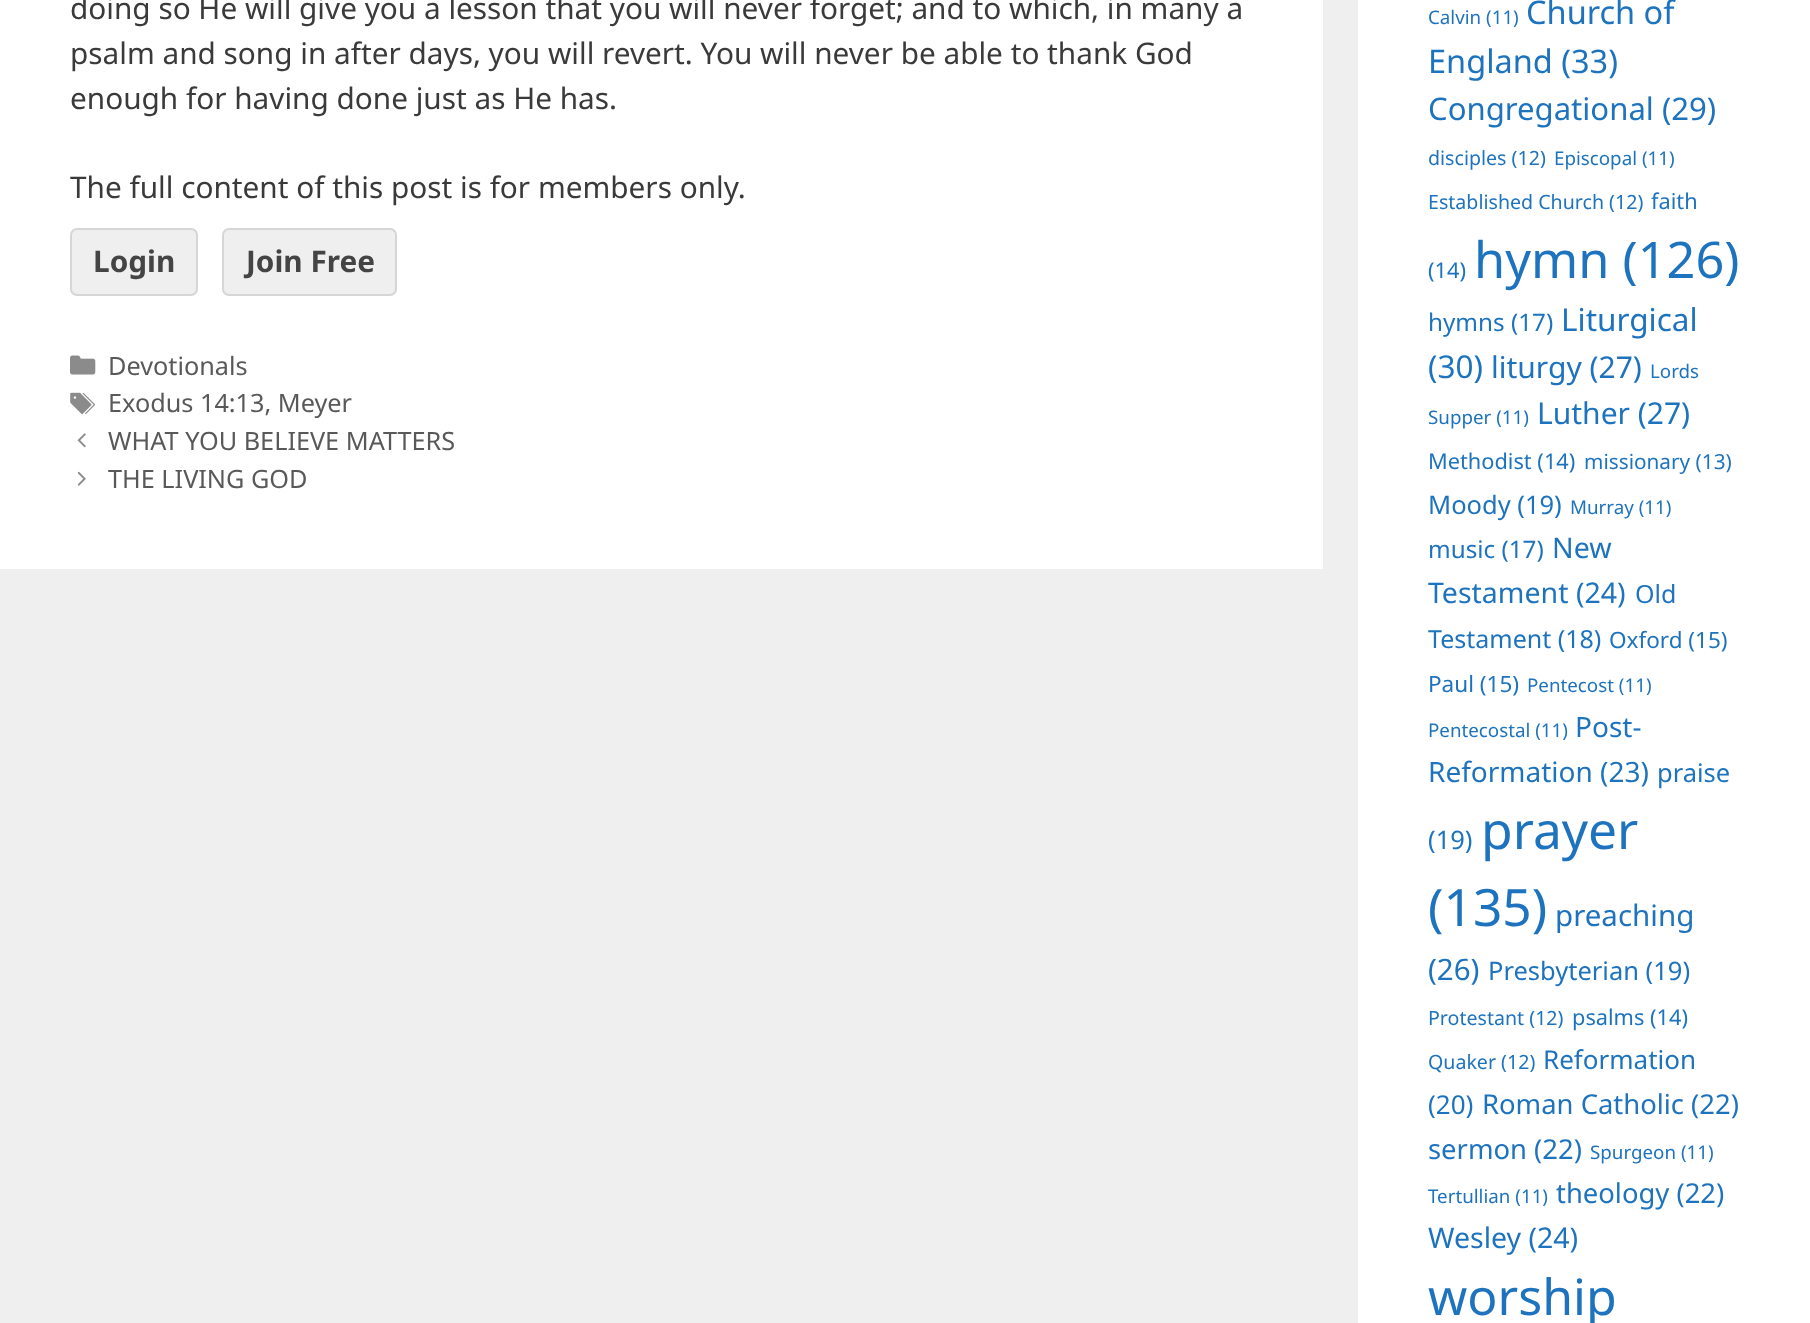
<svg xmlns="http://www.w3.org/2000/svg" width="1810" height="1323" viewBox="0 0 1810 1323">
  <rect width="100%" height="100%" fill="#efefef"/>
  <path d="M0 0h1323v569H0z" fill="#fff"/>
  <rect x="71" y="229" width="126" height="66" rx="6" fill="#efefef" stroke="#d6d6d6" stroke-width="2"/>
  <rect x="223" y="229" width="173" height="66" rx="6" fill="#efefef" stroke="#d6d6d6" stroke-width="2"/>
  <image x="70" y="355" width="26" height="20" href="img/1.png"/>
  <image x="70" y="392" width="25" height="23" href="img/2.png"/>
  <image x="77" y="433" width="9" height="15" href="img/3.png"/>
  <image x="77" y="471" width="9" height="15" href="img/4.png"/>
  <path d="M1358 0h452v1323H1358z" fill="#fff"/>
  <g font-family="Noto Sans" font-size="29.75" fill="#3a3a3a">
    <text x="70" y="19">doing so He will give you a lesson that you will never forget; and to which, in many a</text>
    <text x="70" y="64">psalm and song in after days, you will revert. You will never be able to thank God</text>
    <text x="70" y="109">enough for having done just as He has.</text>
    <text x="70" y="198">The full content of this post is for members only.</text>
  </g>
  <g font-family="Noto Sans" font-size="29.75" font-weight="bold" fill="#444">
    <text x="93" y="272">Login</text>
    <text x="246" y="272">Join Free</text>
  </g>
  <g font-family="Noto Sans" font-size="25.25" fill="#595959">
    <text x="108" y="375">Devotionals</text>
    <text x="108" y="412">Exodus 14:13, Meyer</text>
    <text x="108" y="450">WHAT YOU BELIEVE MATTERS</text>
    <text x="108" y="488">THE LIVING GOD</text>
  </g>
  <text x="1428" y="24" font-family="Noto Sans" font-size="18.75" fill="#1e73be">Calvin (11)</text>
  <g font-family="Noto Sans" font-size="32.5" fill="#1e73be">
    <text x="1526" y="24">Church of</text>
    <text x="1428" y="73">England (33)</text>
  </g>
  <text x="1428" y="120" font-family="Noto Sans" font-size="31.1" fill="#1e73be">Congregational (29)</text>
  <text x="1428" y="165" font-family="Noto Sans" font-size="19.6" fill="#1e73be">disciples (12)</text>
  <text x="1554" y="165" font-family="Noto Sans" font-size="18.75" fill="#1e73be">Episcopal (11)</text>
  <text x="1428" y="209" font-family="Noto Sans" font-size="19.6" fill="#1e73be">Established Church (12)</text>
  <g font-family="Noto Sans" font-size="21.75" fill="#1e73be">
    <text x="1651" y="209">faith</text>
    <text x="1428" y="278">(14)</text>
  </g>
  <text x="1474" y="278" font-family="Noto Sans" font-size="50.5" fill="#1e73be">hymn (126)</text>
  <text x="1428" y="331" font-family="Noto Sans" font-size="24.25" fill="#1e73be">hymns (17)</text>
  <g font-family="Noto Sans" font-size="31.5" fill="#1e73be">
    <text x="1561" y="331">Liturgical</text>
    <text x="1428" y="378">(30)</text>
  </g>
  <text x="1491" y="378" font-family="Noto Sans" font-size="30" fill="#1e73be">liturgy (27)</text>
  <g font-family="Noto Sans" font-size="18.75" fill="#1e73be">
    <text x="1650" y="378">Lords</text>
    <text x="1428" y="424">Supper (11)</text>
  </g>
  <text x="1537" y="424" font-family="Noto Sans" font-size="30" fill="#1e73be">Luther (27)</text>
  <text x="1428" y="469" font-family="Noto Sans" font-size="21.75" fill="#1e73be">Methodist (14)</text>
  <text x="1584" y="469" font-family="Noto Sans" font-size="20.75" fill="#1e73be">missionary (13)</text>
  <text x="1428" y="514" font-family="Noto Sans" font-size="25.5" fill="#1e73be">Moody (19)</text>
  <text x="1570" y="514" font-family="Noto Sans" font-size="18.75" fill="#1e73be">Murray (11)</text>
  <text x="1428" y="558" font-family="Noto Sans" font-size="24.25" fill="#1e73be">music (17)</text>
  <g font-family="Noto Sans" font-size="28.5" fill="#1e73be">
    <text x="1552" y="558">New</text>
    <text x="1428" y="603">Testament (24)</text>
  </g>
  <g font-family="Noto Sans" font-size="25" fill="#1e73be">
    <text x="1635" y="603">Old</text>
    <text x="1428" y="648">Testament (18)</text>
  </g>
  <g font-family="Noto Sans" font-size="22.5" fill="#1e73be">
    <text x="1609" y="648">Oxford (15)</text>
    <text x="1428" y="692">Paul (15)</text>
  </g>
  <g font-family="Noto Sans" font-size="18.75" fill="#1e73be">
    <text x="1527" y="692">Pentecost (11)</text>
    <text x="1428" y="737">Pentecostal (11)</text>
  </g>
  <g font-family="Noto Sans" font-size="28" fill="#1e73be">
    <text x="1575" y="737">Post-</text>
    <text x="1428" y="782">Reformation (23)</text>
  </g>
  <g font-family="Noto Sans" font-size="25.5" fill="#1e73be">
    <text x="1657" y="782">praise</text>
    <text x="1428" y="849">(19)</text>
  </g>
  <g font-family="Noto Sans" font-size="51.5" fill="#1e73be">
    <text x="1481" y="849">prayer</text>
    <text x="1428" y="926">(135)</text>
  </g>
  <g font-family="Noto Sans" font-size="29.5" fill="#1e73be">
    <text x="1555" y="926">preaching</text>
    <text x="1428" y="980">(26)</text>
  </g>
  <text x="1488" y="980" font-family="Noto Sans" font-size="25.5" fill="#1e73be">Presbyterian (19)</text>
  <text x="1428" y="1025" font-family="Noto Sans" font-size="19.6" fill="#1e73be">Protestant (12)</text>
  <text x="1572" y="1025" font-family="Noto Sans" font-size="21.75" fill="#1e73be">psalms (14)</text>
  <text x="1428" y="1069" font-family="Noto Sans" font-size="19.6" fill="#1e73be">Quaker (12)</text>
  <g font-family="Noto Sans" font-size="26" fill="#1e73be">
    <text x="1543" y="1069">Reformation</text>
    <text x="1428" y="1114">(20)</text>
  </g>
  <g font-family="Noto Sans" font-size="27.4" fill="#1e73be">
    <text x="1482" y="1114">Roman Catholic (22)</text>
    <text x="1428" y="1159">sermon (22)</text>
  </g>
  <g font-family="Noto Sans" font-size="18.75" fill="#1e73be">
    <text x="1590" y="1159">Spurgeon (11)</text>
    <text x="1428" y="1203">Tertullian (11)</text>
  </g>
  <text x="1556" y="1203" font-family="Noto Sans" font-size="27.4" fill="#1e73be">theology (22)</text>
  <text x="1428" y="1248" font-family="Noto Sans" font-size="28.5" fill="#1e73be">Wesley (24)</text>
  <text x="1428" y="1315" font-family="Noto Sans" font-size="50" fill="#1e73be">worship</text>
</svg>
